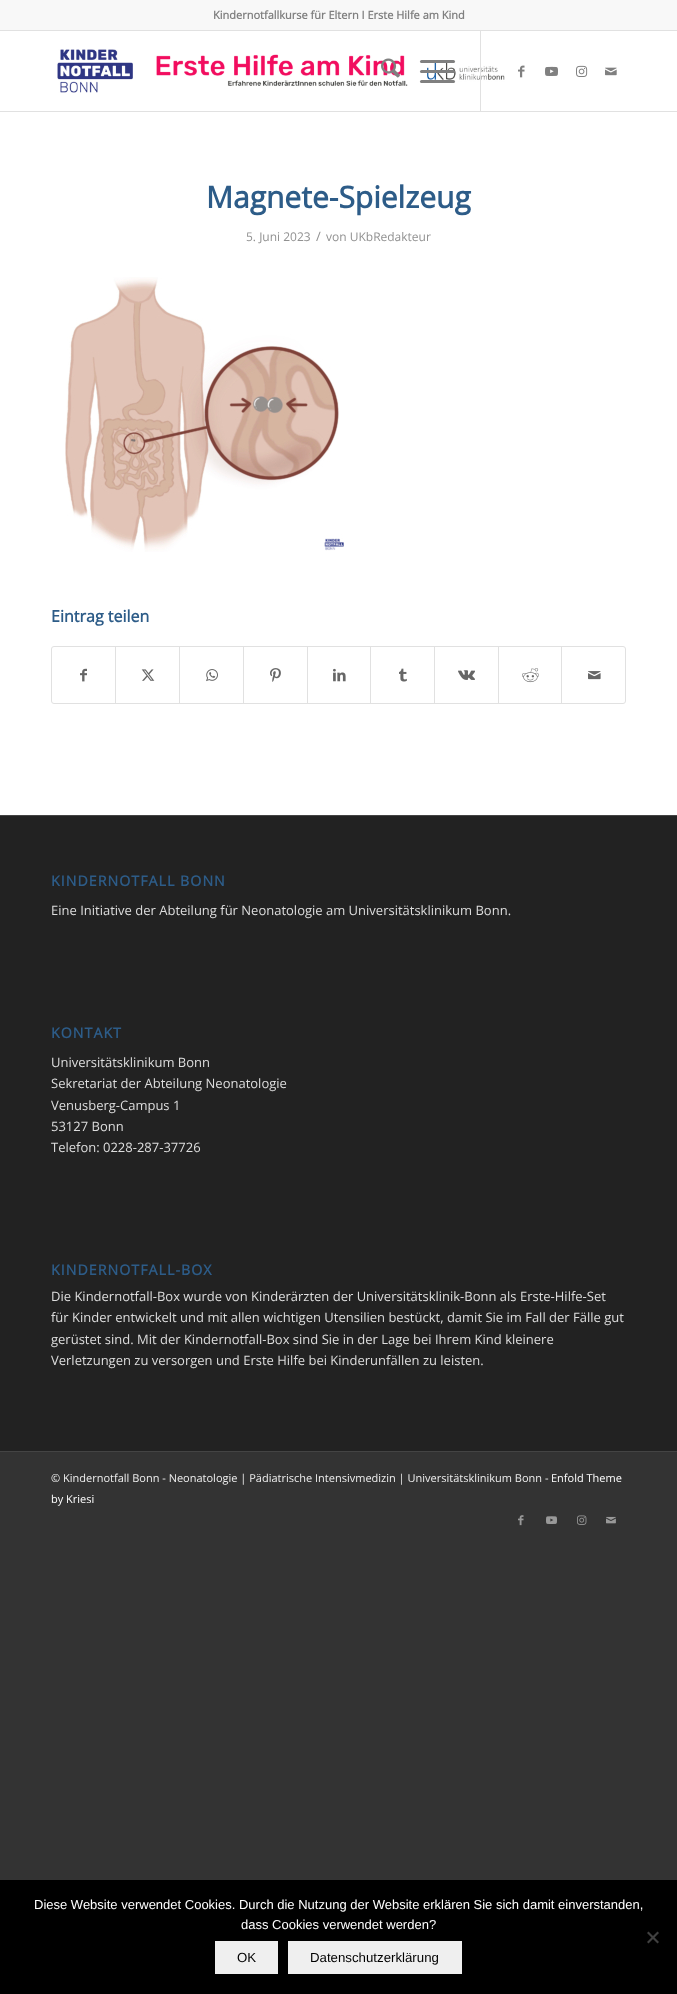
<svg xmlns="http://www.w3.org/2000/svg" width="677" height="1994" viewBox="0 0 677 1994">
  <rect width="100%" height="100%" fill="#333"/>
  <path d="M0 31h677v784H0z" fill="#fff"/>
  <path d="M0 0h677v30H0z" fill="#f8f8f8"/>
  <path d="M0 30h677v1H0z" fill="#e1e1e1"/>
  <path d="M0 111h677v1H0z" fill="#e1e1e1"/>
  <image x="57" y="49" width="448" height="44" href="img/6.png"/>
  <path d="M480 31h1v80H480z" fill="#e1e1e1"/>
  <image x="381" y="58" width="19" height="20" href="img/1.png"/>
  <rect x="420" y="70" width="35" height="3" rx="1.5" fill="#808080"/>
  <rect x="420" y="60" width="35" height="3" rx="1.5" fill="#808080"/>
  <rect x="420" y="80" width="35" height="3" rx="1.5" fill="#808080"/>
  <image x="518" y="65" width="7" height="13" href="img/2.png"/>
  <image x="545" y="66" width="13" height="10" href="img/3.png"/>
  <image x="576" y="65" width="12" height="12" href="img/4.png"/>
  <image x="605" y="67" width="12" height="9" href="img/5.png"/>
  <image x="65" y="277" width="279" height="275" href="img/7.png"/>
  <rect x="51.5" y="646.5" width="574" height="57" rx="2.5" fill="none" stroke="#e1e1e1"/>
  <image x="80" y="668" width="7" height="14" href="img/8.png"/>
  <path d="M115 647h1v56H115z" fill="#e1e1e1"/>
  <image x="141" y="669" width="14" height="12" href="img/9.png"/>
  <path d="M179 647h1v56H179z" fill="#e1e1e1"/>
  <image x="206" y="669" width="12" height="13" href="img/10.png"/>
  <path d="M243 647h1v56H243z" fill="#e1e1e1"/>
  <image x="270" y="668" width="11" height="14" href="img/11.png"/>
  <path d="M307 647h1v56H307z" fill="#e1e1e1"/>
  <image x="333" y="668" width="13" height="14" href="img/12.png"/>
  <path d="M370 647h1v56H370z" fill="#e1e1e1"/>
  <image x="399" y="668" width="8" height="14" href="img/13.png"/>
  <path d="M434 647h1v56H434z" fill="#e1e1e1"/>
  <image x="458" y="670" width="17" height="10" href="img/14.png"/>
  <path d="M498 647h1v56H498z" fill="#e1e1e1"/>
  <image x="522" y="668" width="17" height="15" href="img/15.png"/>
  <path d="M561 647h1v56H561z" fill="#e1e1e1"/>
  <image x="588" y="671" width="13" height="9" href="img/16.png"/>
  <path d="M0 816h677v635H0z" fill="#222"/>
  <path d="M0 815h677v1H0z" fill="#444"/>
  <path d="M0 1451h677v1H0z" fill="#444"/>
  <image x="518" y="1515" width="6" height="11" href="img/17.png"/>
  <image x="546" y="1516" width="11" height="8" href="img/18.png"/>
  <image x="577" y="1515" width="10" height="10" href="img/19.png"/>
  <image x="606" y="1516" width="10" height="8" href="img/20.png"/>
  <path d="M0 1880h677v114H0z" fill="#000"/>
  <path d="M657.5 1931.5L659 1933L648.5 1943.5L647 1942Z" fill="#404040"/>
  <path d="M647 1933L648.5 1931.5L659 1942L657.5 1943.5Z" fill="#404040"/>
  <path d="M215 1941h63v33H215z" fill="#efefef"/>
  <path d="M288 1941h174v33H288z" fill="#efefef"/>
  <text x="213" y="19" font-family="Open Sans" font-size="11" font-weight="bold" fill="#808080">Kindernotfallkurse für Eltern I Erste Hilfe am Kind</text>
  <text x="206" y="208" font-family="Open Sans" font-size="30" font-weight="bold" fill="#2d5c88">Magnete-Spielzeug</text>
  <text x="246" y="241" font-family="Open Sans" font-size="12" fill="#919191">5. Juni 2023</text>
  <text x="316" y="241" font-family="Open Sans" font-size="13" fill="#919191">/</text>
  <text x="326" y="241" font-family="Open Sans" font-size="12" fill="#919191">von UKbRedakteur</text>
  <text x="51" y="622" font-family="Open Sans" font-size="16" font-weight="bold" fill="#2d5c88">Eintrag teilen</text>
  <text x="51" y="886" font-family="Open Sans" font-size="14.25" font-weight="bold" letter-spacing="1" fill="#2d5c88">KINDERNOTFALL BONN</text>
  <text x="51" y="915" font-family="Open Sans" font-size="13" fill="#ddd">Eine Initiative der Abteilung für Neonatologie am Universitätsklinikum Bonn.</text>
  <text x="51" y="1038" font-family="Open Sans" font-size="14.25" font-weight="bold" letter-spacing="1" fill="#2d5c88">KONTAKT</text>
  <g font-family="Open Sans" font-size="13" fill="#ddd">
    <text x="51" y="1067">Universitätsklinikum Bonn</text>
    <text x="51" y="1088">Sekretariat der Abteilung Neonatologie</text>
    <text x="51" y="1110">Venusberg-Campus 1</text>
    <text x="51" y="1131">53127 Bonn</text>
    <text x="51" y="1152">Telefon: 0228-287-37726</text>
  </g>
  <text x="51" y="1275" font-family="Open Sans" font-size="14.25" font-weight="bold" letter-spacing="1" fill="#2d5c88">KINDERNOTFALL-BOX</text>
  <g font-family="Open Sans" font-size="13" fill="#ddd">
    <text x="51" y="1301">Die Kindernotfall-Box wurde von Kinderärzten der Universitätsklinik-Bonn als Erste-Hilfe-Set</text>
    <text x="51" y="1322">für Kinder entwickelt und mit allen wichtigen Utensilien bestückt, damit Sie im Fall der Fälle gut</text>
    <text x="51" y="1344">gerüstet sind. Mit der Kindernotfall-Box sind Sie in der Lage bei Ihrem Kind kleinere</text>
    <text x="51" y="1365">Verletzungen zu versorgen und Erste Hilfe bei Kinderunfällen zu leisten.</text>
  </g>
  <text x="51" y="1482" font-family="Open Sans" font-size="11" fill="#eee">© Kindernotfall Bonn - Neonatologie | Pädiatrische Intensivmedizin | Universitätsklinikum Bonn -</text>
  <g font-family="Open Sans" font-size="11" fill="#fff">
    <text x="551" y="1482">Enfold Theme</text>
    <text x="51" y="1503">by Kriesi</text>
  </g>
  <g font-family="Liberation Sans" font-size="13" fill="#fff">
    <text x="34" y="1909">Diese Website verwendet Cookies. Durch die Nutzung der Website erklären Sie sich damit einverstanden,</text>
    <text x="241" y="1929">dass Cookies verwendet werden?</text>
  </g>
  <g font-family="Liberation Sans" font-size="13.25" fill="#000">
    <text x="237" y="1962">OK</text>
    <text x="310" y="1962">Datenschutzerklärung</text>
  </g>
</svg>
